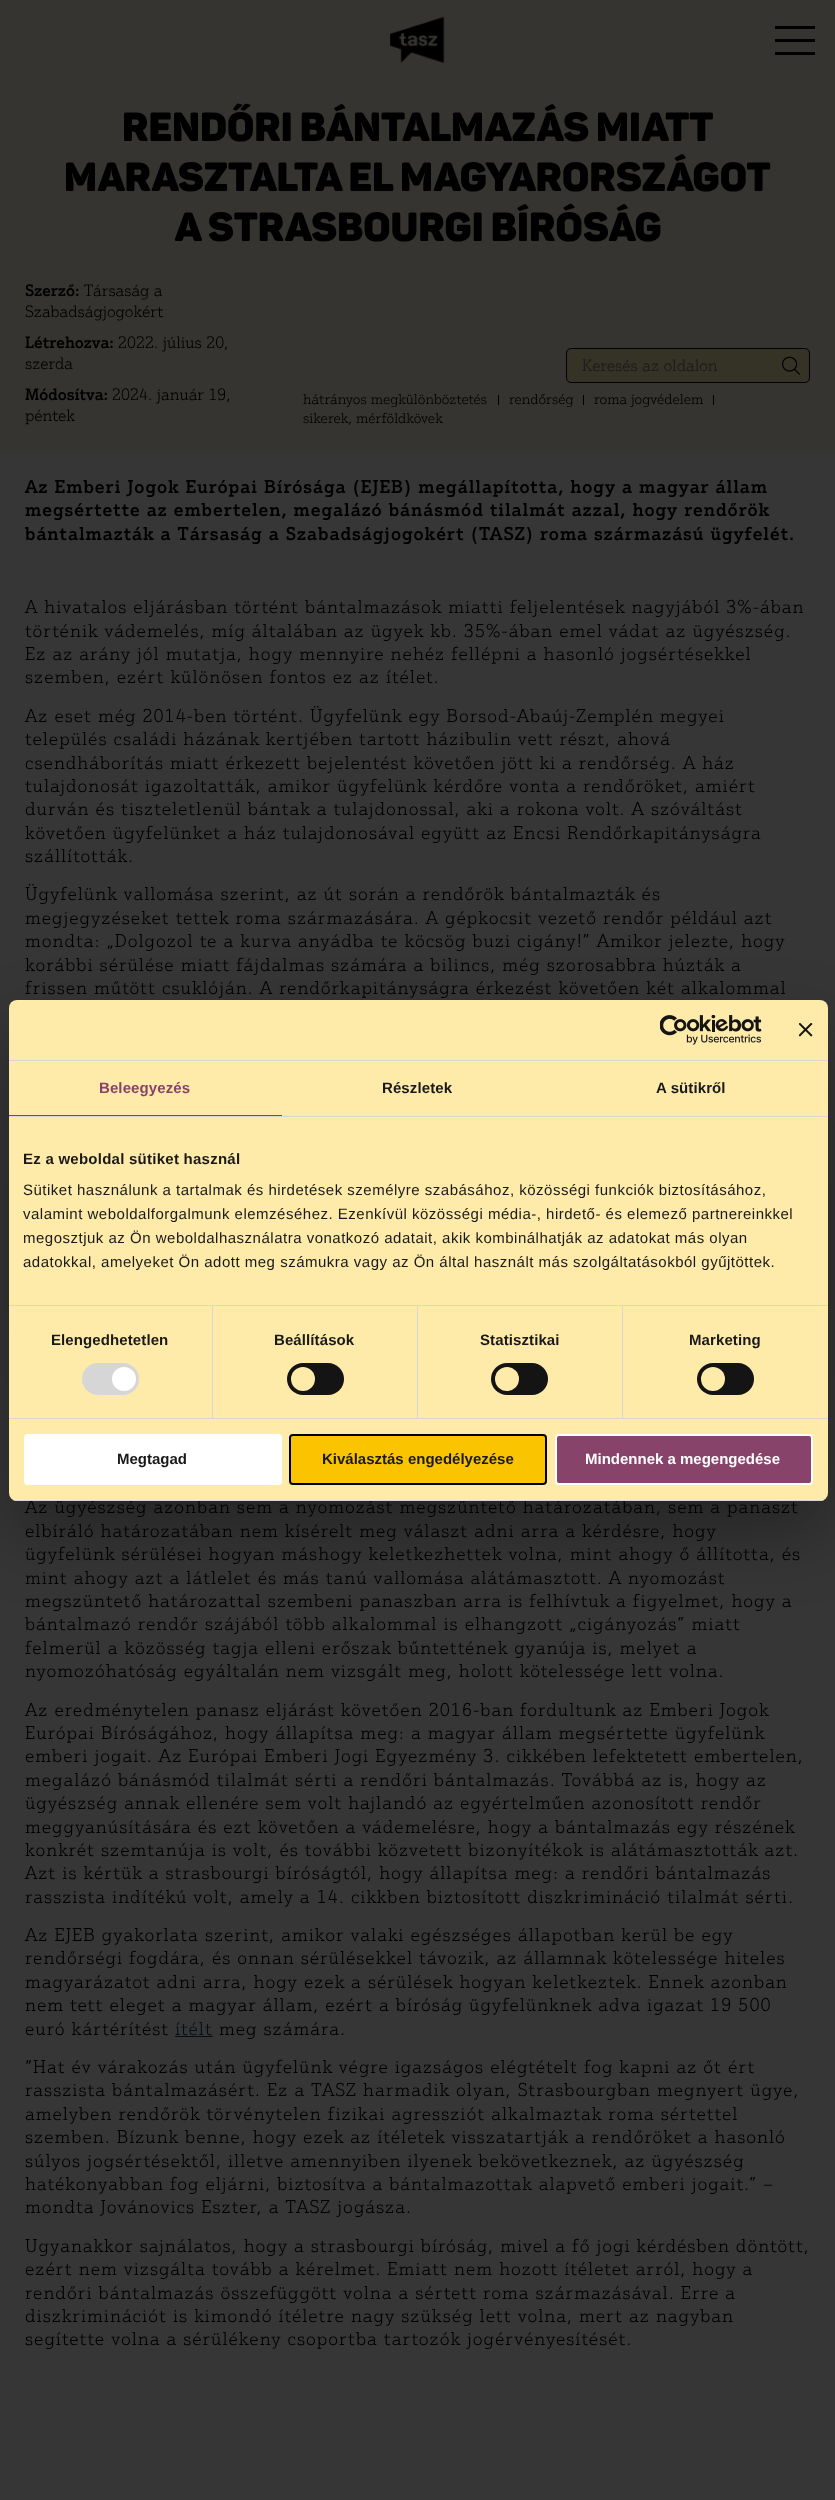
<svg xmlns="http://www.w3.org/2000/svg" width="835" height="2500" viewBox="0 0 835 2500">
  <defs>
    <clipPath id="clip1"><rect x="9" y="1000" width="819" height="501" rx="8"/></clipPath>
  </defs>
  <rect width="100%" height="100%" fill="#363636"/>
  <path d="M0 0h835v451H0z" fill="#353430"/>
  <image x="390" y="16" width="55" height="48" href="img/1.png"/>
  <path d="M775 26h40v3H775z" fill="#000"/>
  <path d="M775 39h40v3H775z" fill="#000"/>
  <path d="M775 52h40v3H775z" fill="#000"/>
  <rect x="566.5" y="348.5" width="243" height="34" rx="4.5" fill="#353226" stroke="#000"/>
  <image x="782" y="356" width="18" height="19" href="img/2.png"/>
  <path d="M498 395h1v10H498z" fill="#000"/>
  <path d="M583 395h1v10H583z" fill="#000"/>
  <path d="M713 395h1v10H713z" fill="#000"/>
  <path d="M175 2036h38v1H175z" fill="#070d11"/>
  <rect x="38" y="1133" width="760" height="234" rx="40" fill="#00000033" filter="blur(25px)"/>
  <rect x="9" y="1032" width="819" height="501" rx="8" fill="#0000004d" filter="blur(34px)"/>
  <g font-family="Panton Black" font-size="40" font-weight="900" fill="#000">
    <text x="122" y="141">RENDŐRI BÁNTALMAZÁS MIATT</text>
    <text x="64" y="191">MARASZTALTA EL MAGYARORSZÁGOT</text>
    <text x="174" y="241">A STRASBOURGI BÍRÓSÁG</text>
  </g>
  <text x="25" y="296" font-family="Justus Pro" font-size="16" font-weight="500" fill="#000">Szerző:</text>
  <g font-family="Justus Pro" font-size="16" font-weight="300" fill="#000">
    <text x="84" y="296">Társaság a</text>
    <text x="25" y="317">Szabadságjogokért</text>
  </g>
  <text x="25" y="348" font-family="Justus Pro" font-size="16" font-weight="500" fill="#000">Létrehozva:</text>
  <g font-family="Justus Pro" font-size="16" font-weight="300" fill="#000">
    <text x="118" y="348">2022. július 20,</text>
    <text x="25" y="369">szerda</text>
  </g>
  <text x="25" y="400" font-family="Justus Pro" font-size="16" font-weight="500" fill="#000">Módosítva:</text>
  <g font-family="Justus Pro" font-size="16" font-weight="300" fill="#000">
    <text x="112" y="400">2024. január 19,</text>
    <text x="25" y="421">péntek</text>
  </g>
  <text x="582" y="371" font-family="Justus Pro" font-size="16" font-weight="300" fill="#191919">Keresés az oldalon</text>
  <g font-family="Justus Pro" font-size="14" font-weight="300" fill="#000">
    <text x="303" y="404">hátrányos megkülönböztetés</text>
    <text x="509" y="404">rendőrség</text>
    <text x="594" y="404">roma jogvédelem</text>
    <text x="303" y="423">sikerek, mérföldkövek</text>
  </g>
  <g font-family="Justus Pro" font-size="18" font-weight="500" letter-spacing="1" fill="#000">
    <text x="25" y="493">Az Emberi Jogok Európai Bírósága (EJEB) megállapította, hogy a magyar állam</text>
    <text x="25" y="516">megsértette az embertelen, megalázó bánásmód tilalmát azzal, hogy rendőrök</text>
    <text x="25" y="540">bántalmazták a Társaság a Szabadságjogokért (TASZ) roma származású ügyfelét.</text>
  </g>
  <g font-family="Justus Pro" font-size="18" font-weight="300" letter-spacing="1" fill="#000">
    <text x="25" y="613">A hivatalos eljárásban történt bántalmazások miatti feljelentések nagyjából 3%-ában</text>
    <text x="25" y="637">történik vádemelés, míg általában az ügyek kb. 35%-ában emel vádat az ügyészség.</text>
    <text x="25" y="660">Ez az arány jól mutatja, hogy mennyire nehéz fellépni a hasonló jogsértésekkel</text>
    <text x="25" y="683">szemben, ezért különösen fontos ez az ítélet.</text>
    <text x="25" y="722">Az eset még 2014-ben történt. Ügyfelünk egy Borsod-Abaúj-Zemplén megyei</text>
    <text x="25" y="745">település családi házának kertjében tartott házibulin vett részt, ahová</text>
    <text x="25" y="769">csendháborítás miatt érkezett bejelentést követően jött ki a rendőrség. A ház</text>
    <text x="25" y="792">tulajdonosát igazoltatták, amikor ügyfelünk kérdőre vonta a rendőröket, amiért</text>
    <text x="25" y="815">durván és tiszteletlenül bántak a tulajdonossal, aki a rokona volt. A szóváltást</text>
    <text x="25" y="839">követően ügyfelünket a ház tulajdonosával együtt az Encsi Rendőrkapitányságra</text>
    <text x="25" y="862">szállították.</text>
    <text x="25" y="900">Ügyfelünk vallomása szerint, az út során a rendőrök bántalmazták és</text>
    <text x="25" y="924">megjegyzéseket tettek roma származására. A gépkocsit vezető rendőr például azt</text>
    <text x="25" y="947">mondta: „Dolgozol te a kurva anyádba te köcsög buzi cigány!” Amikor jelezte, hogy</text>
    <text x="25" y="971">korábbi sérülése miatt fájdalmas számára a bilincs, még szorosabbra húzták a</text>
    <text x="25" y="994">frissen műtött csuklóján. A rendőrkapitányságra érkezést követően két alkalommal</text>
    <text x="25" y="1513">Az ügyészség azonban sem a nyomozást megszüntető határozatában, sem a panaszt</text>
    <text x="25" y="1537">elbíráló határozatában nem kísérelt meg választ adni arra a kérdésre, hogy</text>
    <text x="25" y="1560">ügyfelünk sérülései hogyan máshogy keletkezhettek volna, mint ahogy ő állította, és</text>
    <text x="25" y="1584">mint ahogy azt a látlelet és más tanú vallomása alátámasztott. A nyomozást</text>
    <text x="25" y="1607">megszüntető határozattal szembeni panaszban arra is felhívtuk a figyelmet, hogy a</text>
    <text x="25" y="1630">bántalmazó rendőr szájából több alkalommal is elhangzott „cigányozás” miatt</text>
    <text x="25" y="1654">felmerül a közösség tagja elleni erőszak bűntettének gyanúja is, melyet a</text>
    <text x="25" y="1677">nyomozóhatóság egyáltalán nem vizsgált meg, holott kötelessége lett volna.</text>
    <text x="25" y="1716">Az eredménytelen panasz eljárást követően 2016-ban fordultunk az Emberi Jogok</text>
    <text x="25" y="1739">Európai Bíróságához, hogy állapítsa meg: a magyar állam megsértette ügyfelünk</text>
    <text x="25" y="1762">emberi jogait. Az Európai Emberi Jogi Egyezmény 3. cikkében lefektetett embertelen,</text>
    <text x="25" y="1786">megalázó bánásmód tilalmát sérti a rendőri bántalmazás. Továbbá az is, hogy az</text>
    <text x="25" y="1809">ügyészség annak ellenére sem volt hajlandó az egyértelműen azonosított rendőr</text>
    <text x="25" y="1833">meggyanúsítására és ezt követően a vádemelésre, hogy a bántalmazás egy részének</text>
    <text x="25" y="1856">konkrét szemtanúja is volt, és további közvetett bizonyítékok is alátámasztották azt.</text>
    <text x="25" y="1879">Azt is kértük a strasbourgi bíróságtól, hogy állapítsa meg: a rendőri bántalmazás</text>
    <text x="25" y="1903">rasszista indítékú volt, amely a 14. cikkben biztosított diszkrimináció tilalmát sérti.</text>
    <text x="25" y="1941">Az EJEB gyakorlata szerint, amikor valaki egészséges állapotban kerül be egy</text>
    <text x="25" y="1964">rendőrségi fogdára, és onnan sérülésekkel távozik, az államnak kötelessége hiteles</text>
    <text x="25" y="1988">magyarázatot adni arra, hogy ezek a sérülések hogyan keletkeztek. Ennek azonban</text>
    <text x="25" y="2011">nem tett eleget a magyar állam, ezért a bíróság ügyfelünknek adva igazat 19 500</text>
    <text x="25" y="2035">euró kártérítést</text>
  </g>
  <text x="175" y="2035" font-family="Justus Pro" font-size="18" font-weight="300" letter-spacing="1" fill="#070d11">ítélt</text>
  <g font-family="Justus Pro" font-size="18" font-weight="300" letter-spacing="1" fill="#000">
    <text x="219" y="2035">meg számára.</text>
    <text x="25" y="2073">“Hat év várakozás után ügyfelünk végre igazságos elégtételt fog kapni az őt ért</text>
    <text x="25" y="2096">rasszista bántalmazásért. Ez a TASZ harmadik olyan, Strasbourgban megnyert ügye,</text>
    <text x="25" y="2120">amelyben rendőrök törvénytelen fizikai agressziót alkalmaztak roma sértettel</text>
    <text x="25" y="2143">szemben. Bízunk benne, hogy ezek az ítéletek visszatartják a rendőröket a hasonló</text>
    <text x="25" y="2167">súlyos jogsértésektől, illetve amennyiben ilyenek bekövetkeznek, az ügyészség</text>
    <text x="25" y="2190">hatékonyabban fog eljárni, biztosítva a bántalmazottak alapvető emberi jogait.” –</text>
    <text x="25" y="2213">mondta Jovánovics Eszter, a TASZ jogásza.</text>
    <text x="25" y="2252">Ugyanakkor sajnálatos, hogy a strasbourgi bíróság, mivel a fő jogi kérdésben döntött,</text>
    <text x="25" y="2275">ezért nem vizsgálta tovább a kérelmet. Emiatt nem hozott ítéletet arról, hogy a</text>
    <text x="25" y="2299">rendőri bántalmazás összefüggött volna a sértett roma származásával. Erre a</text>
    <text x="25" y="2322">diszkriminációt is kimondó ítéletre nagy szükség lett volna, mert az nagyban</text>
    <text x="25" y="2345">segítette volna a sérülékeny csoportba tartozók jogérvényesítését.</text>
  </g>
  <rect x="9" y="1000" width="819" height="501" rx="8" fill="#feebaa"/>
  <path d="M9 1060h819v1H9z" fill="#d6d6d6"/>
  <image x="660" y="1015" width="102" height="30" href="img/3.png"/>
  <image x="799" y="1023" width="14" height="14" href="img/4.png"/>
  <path d="M9 1116h819v1H9z" fill="#d6d6d6"/>
  <path d="M9 1115h273v1H9z" fill="#88436a"/>
  <text x="99" y="1093" font-family="Liberation Sans" font-size="15" font-weight="bold" letter-spacing="0.1" fill="#88436a">Beleegyezés</text>
  <g font-family="Liberation Sans" font-size="15" font-weight="bold" letter-spacing="0.1" fill="#191919">
    <text x="382" y="1093">Részletek</text>
    <text x="656" y="1093">A sütikről</text>
  </g>
  <path d="M9 1305h819v1H9z" fill="#d6d6d6"/>
  <text x="23" y="1164" font-family="Liberation Sans" font-size="15" font-weight="bold" letter-spacing="0.25" fill="#191919">Ez a weboldal sütiket használ</text>
  <g font-family="Liberation Sans" font-size="15" letter-spacing="0.5" fill="#191919">
    <text x="23" y="1195">Sütiket használunk a tartalmak és hirdetések személyre szabásához, közösségi funkciók biztosításához,</text>
    <text x="23" y="1219">valamint weboldalforgalmunk elemzéséhez. Ezenkívül közösségi média-, hirdető- és elemező partnereinkkel</text>
    <text x="23" y="1243">megosztjuk az Ön weboldalhasználatra vonatkozó adatait, akik kombinálhatják az adatokat más olyan</text>
    <text x="23" y="1267">adatokkal, amelyeket Ön adott meg számukra vagy az Ön által használt más szolgáltatásokból gyűjtöttek.</text>
  </g>
  <path d="M9 1418h819v1H9z" fill="#d6d6d6"/>
  <path d="M212 1306h1v112H212z" fill="#d6d6d6"/>
  <text x="51" y="1345" font-family="Liberation Sans" font-size="15" font-weight="bold" letter-spacing="0.1" fill="#191919">Elengedhetetlen</text>
  <rect x="82" y="1363" width="57" height="32" rx="16" fill="#d6d6d6"/>
  <circle cx="124" cy="1379" r="12" fill="#fff"/>
  <path d="M417 1306h1v112H417z" fill="#d6d6d6"/>
  <text x="274" y="1345" font-family="Liberation Sans" font-size="15" font-weight="bold" letter-spacing="0.1" fill="#191919">Beállítások</text>
  <rect x="287" y="1363" width="57" height="32" rx="16" fill="#141414"/>
  <circle cx="303" cy="1379" r="12" fill="#feebaa"/>
  <path d="M622 1306h1v112H622z" fill="#d6d6d6"/>
  <text x="480" y="1345" font-family="Liberation Sans" font-size="15" font-weight="bold" letter-spacing="0.1" fill="#191919">Statisztikai</text>
  <rect x="491" y="1363" width="57" height="32" rx="16" fill="#141414"/>
  <circle cx="507" cy="1379" r="12" fill="#feebaa"/>
  <text x="689" y="1345" font-family="Liberation Sans" font-size="15" font-weight="bold" letter-spacing="0.1" fill="#191919">Marketing</text>
  <rect x="697" y="1363" width="57" height="32" rx="16" fill="#141414"/>
  <circle cx="713" cy="1379" r="12" fill="#feebaa"/>
  <g clip-path="url(#clip1)">
    <path d="M9 1500h819v1H9z" fill="#d6d6d6"/>
  </g>
  <rect x="25" y="1435" width="256" height="49" rx="3" fill="#fff" stroke="#fff" stroke-width="2"/>
  <text x="117" y="1464" font-family="Liberation Sans" font-size="15" font-weight="bold" fill="#191919">Megtagad</text>
  <rect x="290" y="1435" width="256" height="49" rx="3" fill="#fac400" stroke="#000" stroke-width="2"/>
  <text x="322" y="1464" font-family="Liberation Sans" font-size="15" font-weight="bold" fill="#191919">Kiválasztás engedélyezése</text>
  <rect x="556" y="1435" width="256" height="49" rx="3" fill="#88436a" stroke="#fff" stroke-width="2"/>
  <text x="585" y="1464" font-family="Liberation Sans" font-size="15" font-weight="bold" fill="#fff">Mindennek a megengedése</text>
</svg>
